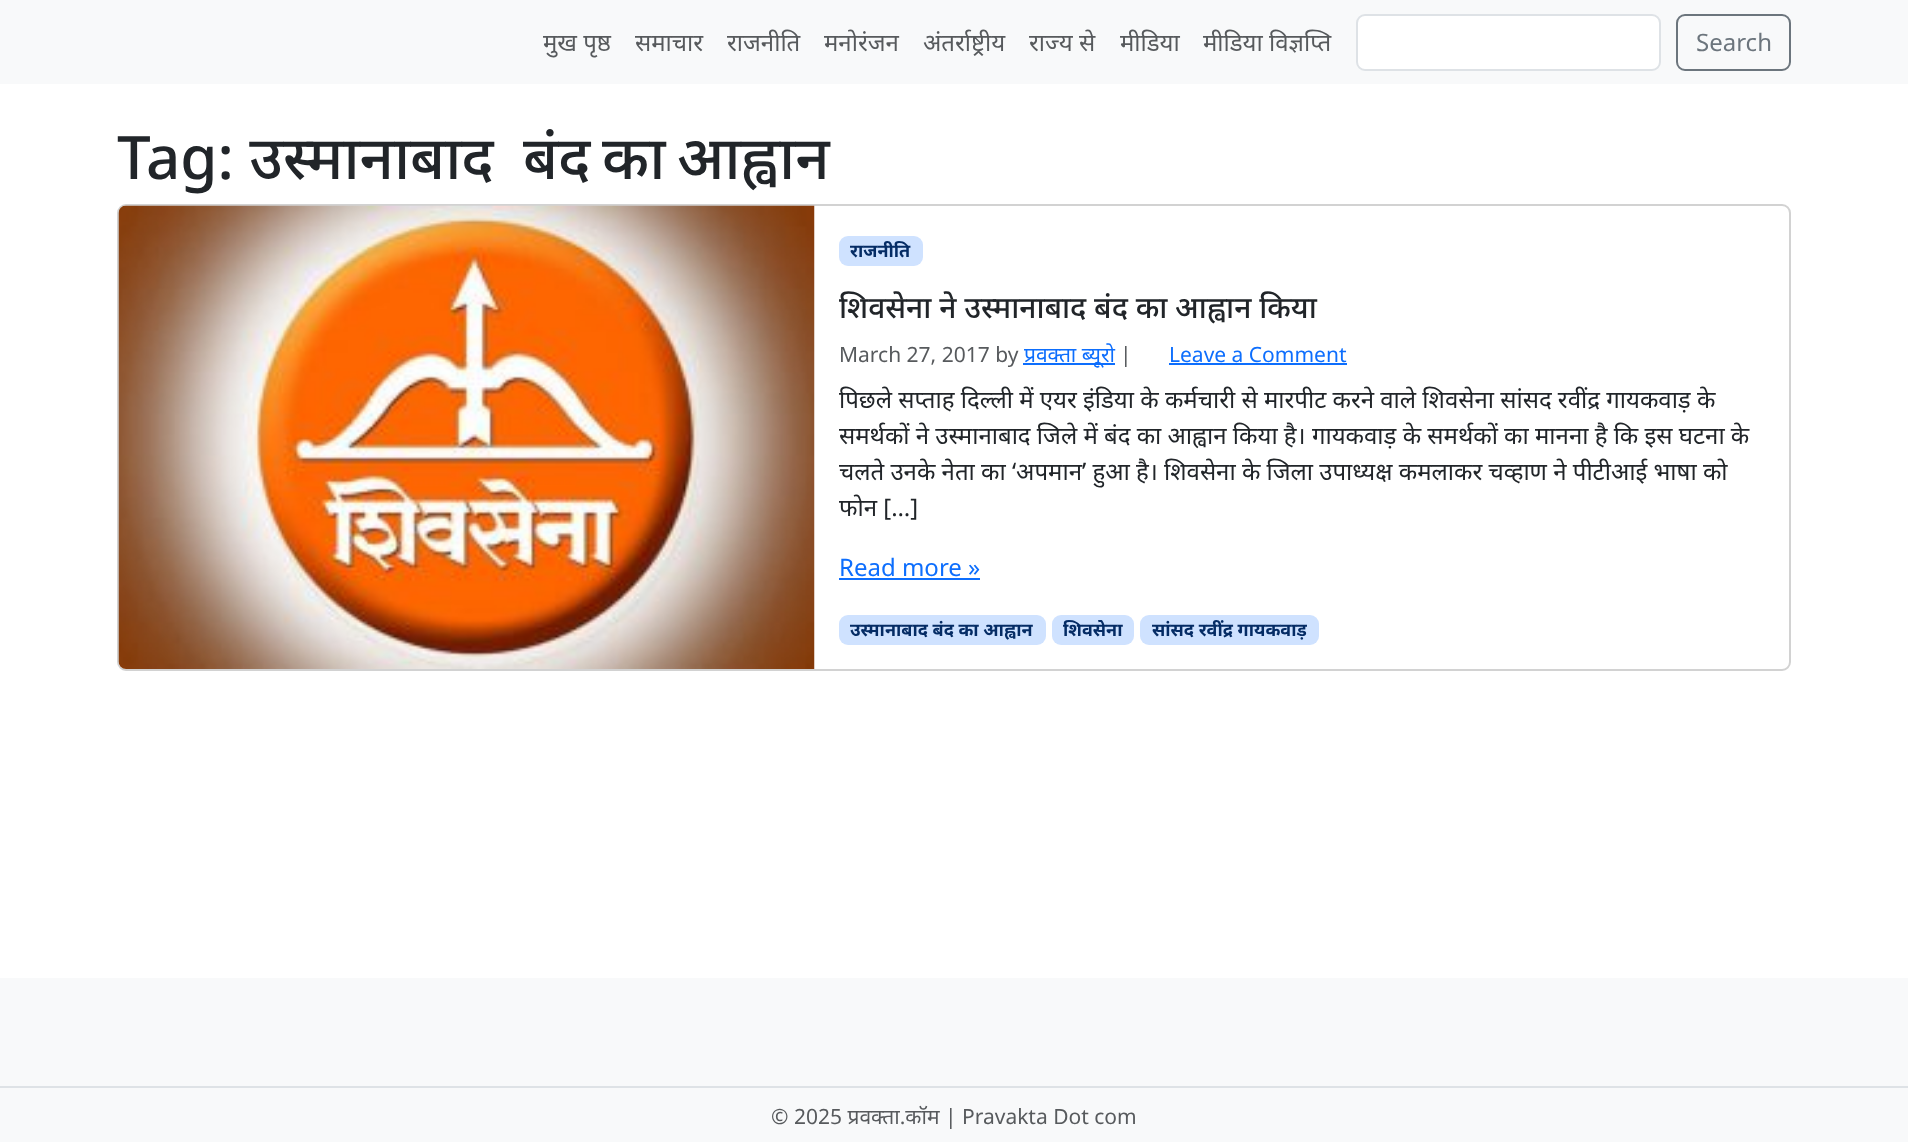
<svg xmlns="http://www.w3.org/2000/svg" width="1908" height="1142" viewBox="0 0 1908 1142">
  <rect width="100%" height="100%" fill="#fff"/>
  <path d="M0 0h1908v84H0z" fill="#f8f9fa"/>
  <rect x="1357" y="15" width="303" height="55" rx="8" fill="#fff" stroke="#dee2e6" stroke-width="2"/>
  <rect x="1677" y="15" width="113" height="55" rx="8" fill="none" stroke="#6c757d" stroke-width="2"/>
  <rect x="118" y="205" width="1672" height="465" rx="8" fill="none" stroke="#d2d2d2" stroke-width="2"/>
  <image x="118" y="205" width="697" height="464" href="img/1.png"/>
  <rect x="839" y="236" width="84" height="30" rx="9" fill="#cfe2ff"/>
  <path d="M1023 363h92v2H1023z" fill="#0d6efd"/>
  <path d="M1169 363h178v2H1169z" fill="#0d6efd"/>
  <path d="M839 578h141v2H839z" fill="#0d6efd"/>
  <rect x="839" y="615" width="207" height="30" rx="9" fill="#cfe2ff"/>
  <rect x="1052" y="615" width="82" height="30" rx="9" fill="#cfe2ff"/>
  <rect x="1140" y="615" width="179" height="30" rx="9" fill="#cfe2ff"/>
  <path d="M0 978h1908v108H0z" fill="#f8f9fa"/>
  <path d="M0 1088h1908v54H0z" fill="#f8f9fa"/>
  <path d="M0 1086h1908v2H0z" fill="#dee2e6"/>
  <g font-family="Noto Sans" font-size="24" fill="#575a5d">
    <text x="543" y="51">मुख पृष्ठ</text>
    <text x="635" y="51">समाचार</text>
    <text x="727" y="51">राजनीति</text>
    <text x="824" y="51">मनोरंजन</text>
    <text x="923" y="51">अंतर्राष्ट्रीय</text>
    <text x="1029" y="51">राज्य से</text>
    <text x="1120" y="51">मीडिया</text>
    <text x="1203" y="51">मीडिया विज्ञप्ति</text>
  </g>
  <text x="1696" y="51" font-family="Noto Sans" font-size="24" fill="#6c757d">Search</text>
  <text x="117" y="179" font-family="Noto Sans" font-size="60" font-weight="500" fill="#212529">Tag: उस्मानाबाद</text>
  <text x="523" y="179" font-family="Noto Sans" font-size="60" font-weight="500" fill="#212529">बंद</text>
  <text x="602" y="179" font-family="Noto Sans" font-size="60" font-weight="500" fill="#212529">का</text>
  <text x="677" y="179" font-family="Noto Sans" font-size="60" font-weight="500" fill="#212529">आह्वान</text>
  <text x="850" y="257" font-family="Noto Sans" font-size="18" font-weight="bold" fill="#052c65">राजनीति</text>
  <text x="839" y="318" font-family="Noto Sans" font-size="30" font-weight="500" fill="#212529">शिवसेना ने उस्मानाबाद बंद का आह्वान किया</text>
  <text x="839" y="362" font-family="Noto Sans" font-size="21" fill="#575a5d">March 27, 2017 by</text>
  <text x="1024" y="362" font-family="Noto Sans" font-size="21" fill="#0d6efd">प्रवक्‍ता ब्यूरो</text>
  <text x="1120" y="362" font-family="Noto Sans" font-size="21" fill="#575a5d">|</text>
  <text x="1169" y="362" font-family="Noto Sans" font-size="21" fill="#0d6efd">Leave a Comment</text>
  <g font-family="Noto Sans" font-size="24" fill="#212529">
    <text x="839" y="408">पिछले सप्ताह दिल्ली में एयर इंडिया के कर्मचारी से मारपीट करने वाले शिवसेना सांसद रवींद्र गायकवाड़ के</text>
    <text x="839" y="444">समर्थकों ने उस्मानाबाद जिले में बंद का आह्वान किया है। गायकवाड़ के समर्थकों का मानना है कि इस घटना के</text>
    <text x="839" y="480">चलते उनके नेता का ‘अपमान’ हुआ है। शिवसेना के जिला उपाध्यक्ष कमलाकर चव्हाण ने पीटीआई भाषा को</text>
    <text x="839" y="516">फोन […]</text>
  </g>
  <text x="839" y="576" font-family="Noto Sans" font-size="24" fill="#0d6efd">Read more »</text>
  <g font-family="Noto Sans" font-size="18" font-weight="bold" fill="#052c65">
    <text x="850" y="636">उस्मानाबाद बंद का आह्वान</text>
    <text x="1063" y="636">शिवसेना</text>
    <text x="1152" y="636">सांसद रवींद्र गायकवाड़</text>
  </g>
  <text x="771" y="1124" font-family="Noto Sans" font-size="21" fill="#575a5d">© 2025 प्रवक्ता.कॉम | Pravakta Dot com</text>
</svg>
